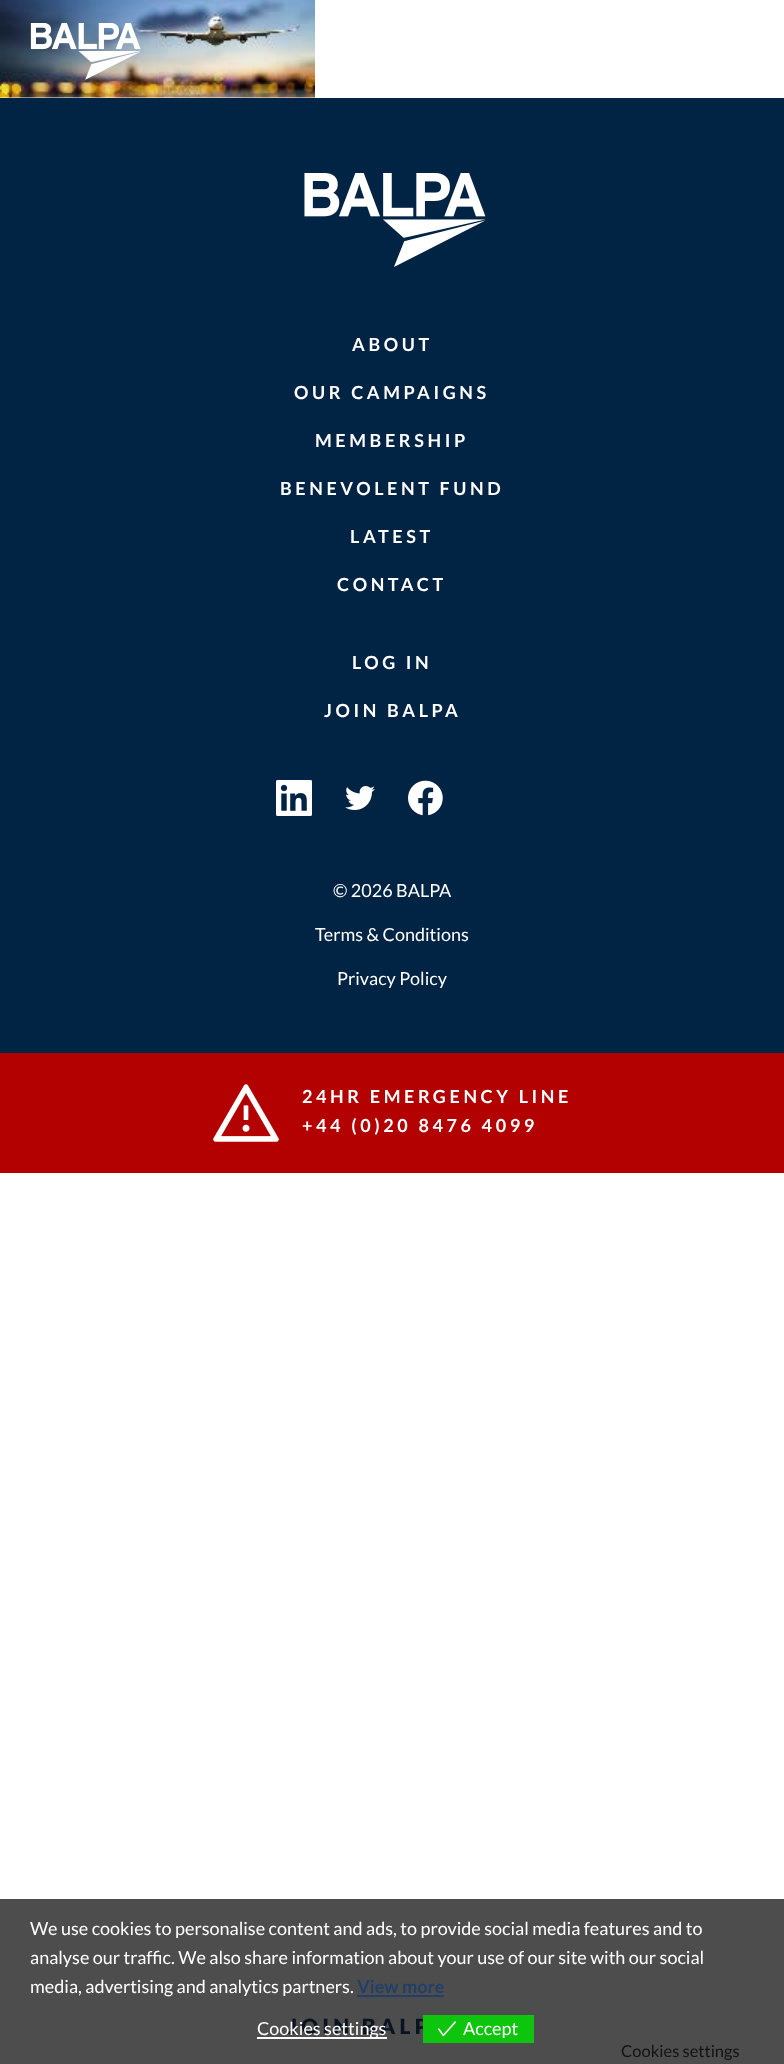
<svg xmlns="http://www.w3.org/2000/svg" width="784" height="2064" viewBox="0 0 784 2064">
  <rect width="100%" height="100%" fill="#fff"/>
  <path d="M0 1899h784v165H0z" fill="#4d4d4d"/>
  <image x="0" y="0" width="315" height="98" href="img/8.png"/>
  <image x="30" y="23" width="111" height="57" href="img/1.png"/>
  <path d="M0 98h784v955H0z" fill="#012344"/>
  <image x="304" y="173" width="182" height="94" href="img/2.png"/>
  <image x="276" y="780" width="36" height="36" href="img/3.png"/>
  <image x="345" y="786" width="30" height="24" href="img/4.png"/>
  <image x="408" y="780" width="35" height="36" href="img/5.png"/>
  <path d="M0 1053h784v120H0z" fill="#b30000"/>
  <image x="213" y="1084" width="66" height="58" href="img/6.png"/>
  <path d="M357 1995h87v2H357z" fill="#223e6a"/>
  <path d="M257 2037h130v2H257z" fill="#fff"/>
  <g font-family="Lato" font-size="18" font-weight="bold" letter-spacing="3.6" fill="#fff">
    <text x="352" y="351">ABOUT</text>
    <text x="294" y="399">OUR CAMPAIGNS</text>
    <text x="315" y="447">MEMBERSHIP</text>
    <text x="280" y="495">BENEVOLENT FUND</text>
    <text x="350" y="543">LATEST</text>
    <text x="337" y="591">CONTACT</text>
    <text x="352" y="669">LOG IN</text>
    <text x="324" y="717">JOIN BALPA</text>
  </g>
  <g font-family="Lato" font-size="18" fill="#fff">
    <text x="333" y="897">© 2026 BALPA</text>
    <text x="315" y="941">Terms &amp; Conditions</text>
    <text x="337" y="985">Privacy Policy</text>
  </g>
  <g font-family="Lato" font-size="18" font-weight="bold" letter-spacing="3.6" fill="#fff">
    <text x="302" y="1103">24HR EMERGENCY LINE</text>
    <text x="302" y="1132">+44 (0)20 8476 4099</text>
  </g>
  <g font-family="Lato" font-size="18" fill="#fff">
    <text x="30" y="1935">We use cookies to personalise content and ads, to provide social media features and to</text>
    <text x="30" y="1964">analyse our traffic. We also share information about your use of our site with our social</text>
    <text x="30" y="1993">media, advertising and analytics partners.</text>
  </g>
  <text x="357" y="1993" font-family="Lato" font-size="18" font-weight="bold" fill="#223e6a">View more</text>
  <text x="288" y="2034" font-family="Lato" font-size="21" font-weight="900" letter-spacing="4.25" fill="#0a1320">JOIN BALP</text>
  <path d="M423 2015h111v28H423z" fill="#0ec50e"/>
  <text x="463" y="2035" font-family="Lato" font-size="18" fill="#fff">Accept</text>
  <image x="438" y="2021" width="18" height="16" href="img/7.png"/>
  <text x="257" y="2035" font-family="Lato" font-size="18" fill="#fff">Cookies settings</text>
  <text x="621" y="2057" font-family="Lato" font-size="16.5" fill="#131313">Cookies settings</text>
</svg>
